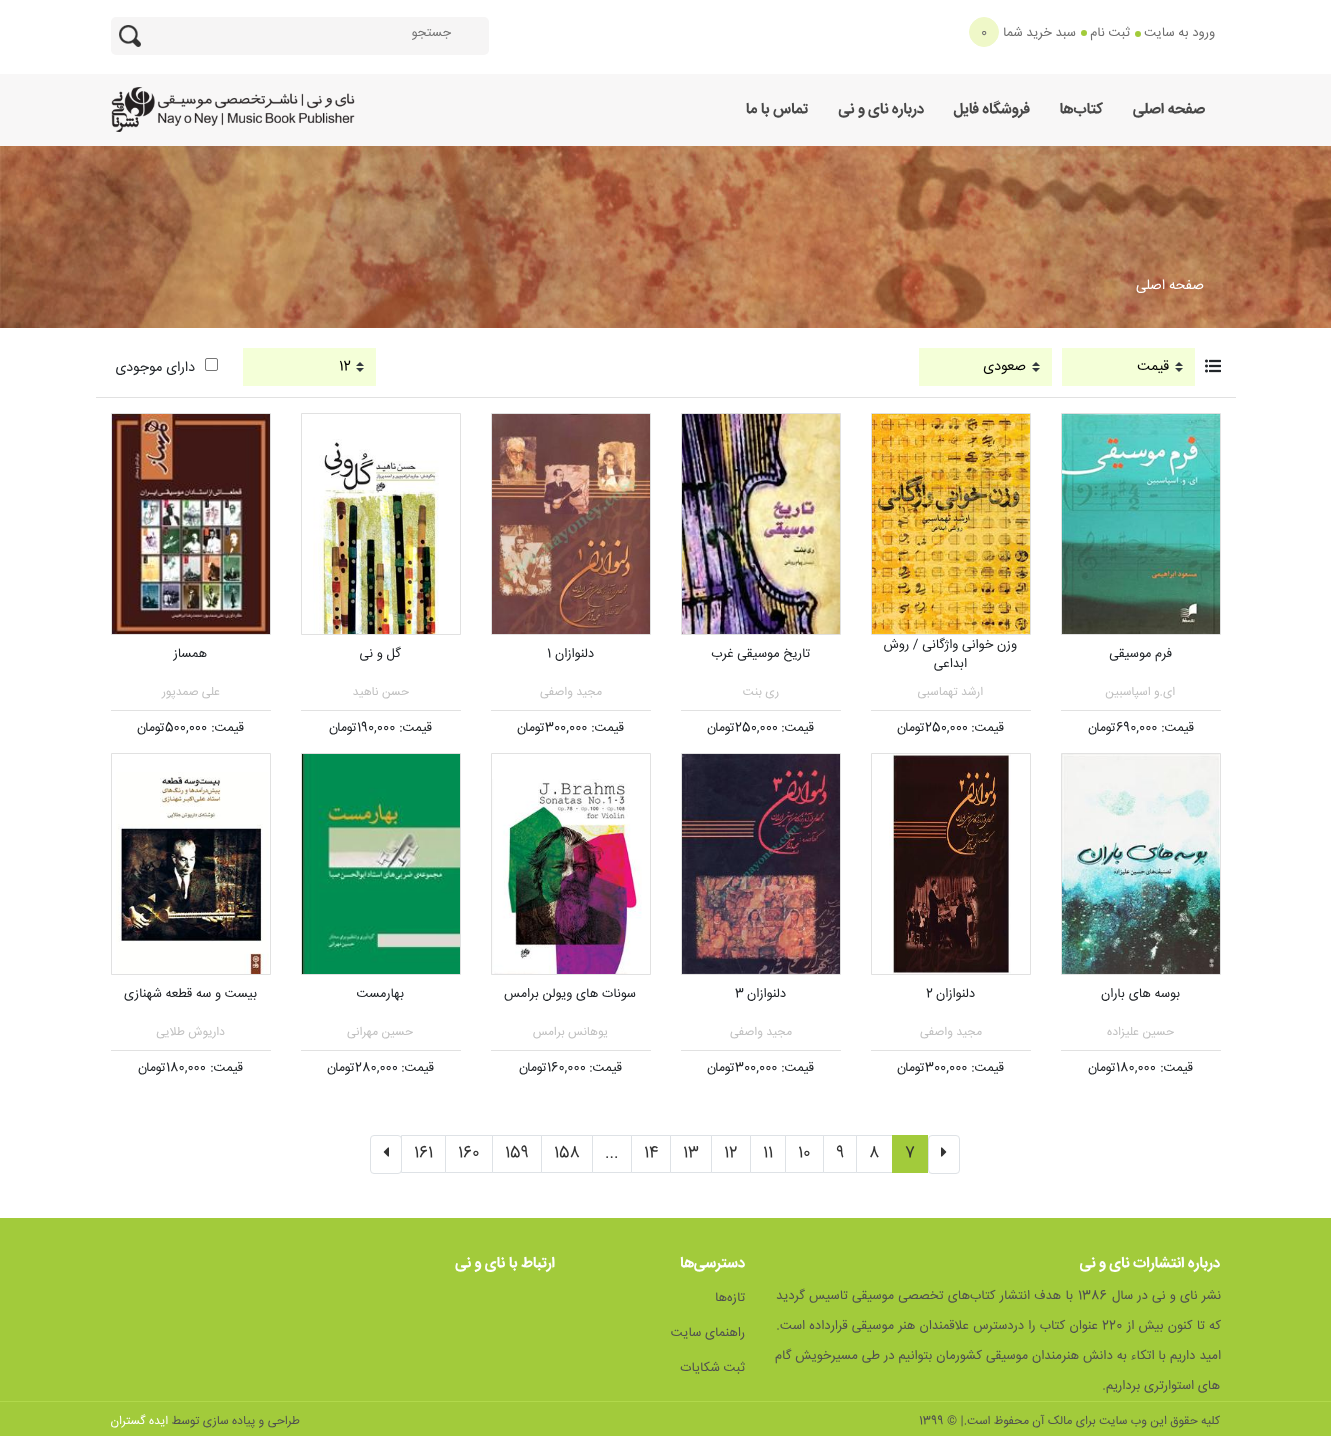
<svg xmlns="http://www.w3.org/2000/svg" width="1331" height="1436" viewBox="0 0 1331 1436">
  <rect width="100%" height="100%" fill="#fff"/>
  <circle cx="1138" cy="34" r="3" fill="#a2cb3b"/>
  <circle cx="1084" cy="33" r="3" fill="#a2cb3b"/>
  <circle cx="984" cy="32" r="14.5" fill="#eff8c8" stroke="#eff8c8"/>
  <rect x="111" y="17" width="378" height="38" rx="5" fill="#f6f5f5"/>
  <image x="119" y="25" width="22" height="22" href="img/1.png"/>
  <path d="M0 74h1331v72H0z" fill="#f8f7f7"/>
  <image x="111" y="87" width="244" height="45" href="img/2.png"/>
  <image x="0" y="146" width="1331" height="182" href="img/3.png"/>
  <path d="M96 397h1140v1H96z" fill="#e1e1e1"/>
  <image x="1205" y="359" width="16" height="14" href="img/4.png"/>
  <path d="M1062 348h133v38H1062z" fill="#f4ffd8"/>
  <image x="1175" y="362" width="8" height="10" href="img/5.png"/>
  <path d="M919 348h133v38H919z" fill="#f4ffd8"/>
  <image x="1032" y="362" width="8" height="10" href="img/5.png"/>
  <path d="M243 348h133v38H243z" fill="#f4ffd8"/>
  <image x="356" y="362" width="8" height="10" href="img/5.png"/>
  <rect x="205.5" y="358.5" width="12" height="12" rx="1.5" fill="none" stroke="#767676"/>
  <path d="M1061.5 413.5h159v221H1061.5z" fill="none" stroke="#e1e1e1"/>
  <image x="1062" y="414" width="158" height="220" href="img/6.png"/>
  <path d="M1061 710h160v1H1061z" fill="#e1e1e1"/>
  <path d="M871.5 413.5h159v221H871.5z" fill="none" stroke="#e1e1e1"/>
  <image x="872" y="414" width="158" height="220" href="img/7.png"/>
  <path d="M871 710h160v1H871z" fill="#e1e1e1"/>
  <path d="M681.5 413.5h159v221H681.5z" fill="none" stroke="#e1e1e1"/>
  <image x="682" y="414" width="158" height="220" href="img/8.png"/>
  <path d="M681 710h160v1H681z" fill="#e1e1e1"/>
  <path d="M491.5 413.5h159v221H491.5z" fill="none" stroke="#e1e1e1"/>
  <image x="492" y="414" width="158" height="220" href="img/9.png"/>
  <path d="M491 710h160v1H491z" fill="#e1e1e1"/>
  <path d="M301.5 413.5h159v221H301.5z" fill="none" stroke="#e1e1e1"/>
  <image x="313" y="439" width="126" height="195" href="img/10.png"/>
  <path d="M301 710h160v1H301z" fill="#e1e1e1"/>
  <path d="M111.5 413.5h159v221H111.5z" fill="none" stroke="#e1e1e1"/>
  <image x="112" y="414" width="158" height="220" href="img/11.png"/>
  <path d="M111 710h160v1H111z" fill="#e1e1e1"/>
  <path d="M1061.5 753.5h159v221H1061.5z" fill="none" stroke="#e1e1e1"/>
  <image x="1062" y="754" width="158" height="220" href="img/12.png"/>
  <path d="M1061 1050h160v1H1061z" fill="#e1e1e1"/>
  <path d="M871.5 753.5h159v221H871.5z" fill="none" stroke="#e1e1e1"/>
  <image x="889" y="754" width="122" height="220" href="img/13.png"/>
  <path d="M871 1050h160v1H871z" fill="#e1e1e1"/>
  <path d="M681.5 753.5h159v221H681.5z" fill="none" stroke="#e1e1e1"/>
  <image x="682" y="754" width="158" height="220" href="img/14.png"/>
  <path d="M681 1050h160v1H681z" fill="#e1e1e1"/>
  <path d="M491.5 753.5h159v221H491.5z" fill="none" stroke="#e1e1e1"/>
  <image x="492" y="779" width="150" height="195" href="img/15.png"/>
  <path d="M491 1050h160v1H491z" fill="#e1e1e1"/>
  <path d="M301.5 753.5h159v221H301.5z" fill="none" stroke="#e1e1e1"/>
  <image x="302" y="754" width="158" height="220" href="img/16.png"/>
  <path d="M301 1050h160v1H301z" fill="#e1e1e1"/>
  <path d="M111.5 753.5h159v221H111.5z" fill="none" stroke="#e1e1e1"/>
  <image x="116" y="772" width="153" height="202" href="img/17.png"/>
  <path d="M111 1050h160v1H111z" fill="#e1e1e1"/>
  <rect x="928.5" y="1135.5" width="31" height="38" rx="3.5" fill="none" stroke="#dee2e6"/>
  <image x="941" y="1147" width="6" height="10" href="img/18.png"/>
  <path d="M856.5 1135.5h36v37H856.5z" fill="none" stroke="#dee2e6"/>
  <path d="M892 1135h36v38H892z" fill="#a2cb3b"/>
  <path d="M823.5 1135.5h33v37H823.5z" fill="none" stroke="#dee2e6"/>
  <path d="M785.5 1135.5h38v37H785.5z" fill="none" stroke="#dee2e6"/>
  <path d="M750.5 1135.5h35v37H750.5z" fill="none" stroke="#dee2e6"/>
  <path d="M711.5 1135.5h39v37H711.5z" fill="none" stroke="#dee2e6"/>
  <path d="M670.5 1135.5h41v37H670.5z" fill="none" stroke="#dee2e6"/>
  <path d="M631.5 1135.5h39v37H631.5z" fill="none" stroke="#dee2e6"/>
  <path d="M592.5 1135.5h39v37H592.5z" fill="none" stroke="#dee2e6"/>
  <path d="M541.5 1135.5h51v37H541.5z" fill="none" stroke="#dee2e6"/>
  <path d="M492.5 1135.5h49v37H492.5z" fill="none" stroke="#dee2e6"/>
  <path d="M445.5 1135.5h47v37H445.5z" fill="none" stroke="#dee2e6"/>
  <path d="M401.5 1135.5h44v37H401.5z" fill="none" stroke="#dee2e6"/>
  <rect x="370.5" y="1135.5" width="31" height="38" rx="3.5" fill="#fff" stroke="#dee2e6"/>
  <image x="383" y="1147" width="6" height="10" href="img/19.png"/>
  <path d="M0 1218h1331v183H0z" fill="#a2cb3b"/>
  <path d="M0 1402h1331v34H0z" fill="#a2cb3b"/>
  <path d="M0 1401h1331v1H0z" fill="#b1d94b"/>
  <g font-family="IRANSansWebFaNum" font-size="13" direction="rtl" fill="#6e6e6e">
    <text x="1215" y="36">ورود به سایت</text>
    <text x="1130" y="36">ثبت نام</text>
    <text x="1076" y="36">سبد خرید شما</text>
  </g>
  <text x="981" y="36" font-family="IRANSansWebFaNum" font-size="13" fill="#6e6e6e">0</text>
  <text x="451" y="36" font-family="IRANSansWebFaNum" font-size="13" direction="rtl" fill="#757575">جستجو</text>
  <g font-family="IRANSansWebFaNum" font-size="15" font-weight="bold" direction="rtl" fill="#474747">
    <text x="1205" y="113">صفحه اصلی</text>
    <text x="1103" y="113">کتاب‌ها</text>
    <text x="1030" y="113">فروشگاه فایل</text>
    <text x="924" y="113">درباره نای و نی</text>
    <text x="808" y="113">تماس با ما</text>
  </g>
  <text x="1204" y="289" font-family="IRANSansWebFaNum" font-size="14" direction="rtl" fill="#fff">صفحه اصلی</text>
  <g font-family="IRANSansWebFaNum" font-size="14" direction="rtl" fill="#000">
    <text x="1169" y="370">قیمت</text>
    <text x="1026" y="370">صعودی</text>
  </g>
  <text x="339" y="370" font-family="IRANSansWebFaNum" font-size="14" fill="#000">12</text>
  <text x="195" y="371" font-family="IRANSansWebFaNum" font-size="14" direction="rtl" fill="#212529">دارای موجودی</text>
  <text x="1172" y="657" font-family="IRANSansWebFaNum" font-size="13" direction="rtl" fill="#212529">فرم موسیقی</text>
  <text x="1175" y="695" font-family="IRANSansWebFaNum" font-size="12" direction="rtl" fill="#c1c1c1">ای.و اسپاسبین</text>
  <text x="1194" y="731" font-family="IRANSansWebFaNum" font-size="13" direction="rtl" fill="#212529">قیمت:</text>
  <text x="1116" y="731" font-family="IRANSansWebFaNum" font-size="13" fill="#212529">690,000</text>
  <g font-family="IRANSansWebFaNum" font-size="13" direction="rtl" fill="#212529">
    <text x="1116" y="731">تومان</text>
    <text x="1017" y="648">وزن خوانی واژگانی / روش</text>
    <text x="967" y="667">ابداعی</text>
  </g>
  <text x="983" y="695" font-family="IRANSansWebFaNum" font-size="12" direction="rtl" fill="#c1c1c1">ارشد تهماسبی</text>
  <text x="1004" y="731" font-family="IRANSansWebFaNum" font-size="13" direction="rtl" fill="#212529">قیمت:</text>
  <text x="925" y="731" font-family="IRANSansWebFaNum" font-size="13" fill="#212529">250,000</text>
  <g font-family="IRANSansWebFaNum" font-size="13" direction="rtl" fill="#212529">
    <text x="925" y="731">تومان</text>
    <text x="810" y="657">تاریخ موسیقی غرب</text>
  </g>
  <text x="779" y="695" font-family="IRANSansWebFaNum" font-size="12" direction="rtl" fill="#c1c1c1">ری بنت</text>
  <text x="814" y="731" font-family="IRANSansWebFaNum" font-size="13" direction="rtl" fill="#212529">قیمت:</text>
  <text x="735" y="731" font-family="IRANSansWebFaNum" font-size="13" fill="#212529">250,000</text>
  <g font-family="IRANSansWebFaNum" font-size="13" direction="rtl" fill="#212529">
    <text x="735" y="731">تومان</text>
    <text x="594" y="657">دلنوازان</text>
  </g>
  <text x="547" y="657" font-family="IRANSansWebFaNum" font-size="13" fill="#212529">1</text>
  <text x="602" y="695" font-family="IRANSansWebFaNum" font-size="12" direction="rtl" fill="#c1c1c1">مجید واصفی</text>
  <text x="624" y="731" font-family="IRANSansWebFaNum" font-size="13" direction="rtl" fill="#212529">قیمت:</text>
  <text x="545" y="731" font-family="IRANSansWebFaNum" font-size="13" fill="#212529">300,000</text>
  <g font-family="IRANSansWebFaNum" font-size="13" direction="rtl" fill="#212529">
    <text x="545" y="731">تومان</text>
    <text x="401" y="657">گل و نی</text>
  </g>
  <text x="409" y="695" font-family="IRANSansWebFaNum" font-size="12" direction="rtl" fill="#c1c1c1">حسن ناهید</text>
  <text x="432" y="731" font-family="IRANSansWebFaNum" font-size="13" direction="rtl" fill="#212529">قیمت:</text>
  <text x="357" y="731" font-family="IRANSansWebFaNum" font-size="13" fill="#212529">190,000</text>
  <g font-family="IRANSansWebFaNum" font-size="13" direction="rtl" fill="#212529">
    <text x="357" y="731">تومان</text>
    <text x="207" y="657">همساز</text>
  </g>
  <text x="220" y="695" font-family="IRANSansWebFaNum" font-size="12" direction="rtl" fill="#c1c1c1">علی صمدپور</text>
  <text x="244" y="731" font-family="IRANSansWebFaNum" font-size="13" direction="rtl" fill="#212529">قیمت:</text>
  <text x="165" y="731" font-family="IRANSansWebFaNum" font-size="13" fill="#212529">500,000</text>
  <g font-family="IRANSansWebFaNum" font-size="13" direction="rtl" fill="#212529">
    <text x="165" y="731">تومان</text>
    <text x="1180" y="997">بوسه های باران</text>
  </g>
  <text x="1174" y="1035" font-family="IRANSansWebFaNum" font-size="12" direction="rtl" fill="#c1c1c1">حسین علیزاده</text>
  <text x="1193" y="1071" font-family="IRANSansWebFaNum" font-size="13" direction="rtl" fill="#212529">قیمت:</text>
  <text x="1116" y="1071" font-family="IRANSansWebFaNum" font-size="13" fill="#212529">180,000</text>
  <g font-family="IRANSansWebFaNum" font-size="13" direction="rtl" fill="#212529">
    <text x="1116" y="1071">تومان</text>
    <text x="975" y="997">دلنوازان</text>
  </g>
  <text x="926" y="997" font-family="IRANSansWebFaNum" font-size="13" fill="#212529">2</text>
  <text x="982" y="1035" font-family="IRANSansWebFaNum" font-size="12" direction="rtl" fill="#c1c1c1">مجید واصفی</text>
  <text x="1004" y="1071" font-family="IRANSansWebFaNum" font-size="13" direction="rtl" fill="#212529">قیمت:</text>
  <text x="925" y="1071" font-family="IRANSansWebFaNum" font-size="13" fill="#212529">300,000</text>
  <g font-family="IRANSansWebFaNum" font-size="13" direction="rtl" fill="#212529">
    <text x="925" y="1071">تومان</text>
    <text x="786" y="997">دلنوازان</text>
  </g>
  <text x="735" y="997" font-family="IRANSansWebFaNum" font-size="13" fill="#212529">3</text>
  <text x="792" y="1035" font-family="IRANSansWebFaNum" font-size="12" direction="rtl" fill="#c1c1c1">مجید واصفی</text>
  <text x="814" y="1071" font-family="IRANSansWebFaNum" font-size="13" direction="rtl" fill="#212529">قیمت:</text>
  <text x="735" y="1071" font-family="IRANSansWebFaNum" font-size="13" fill="#212529">300,000</text>
  <g font-family="IRANSansWebFaNum" font-size="13" direction="rtl" fill="#212529">
    <text x="735" y="1071">تومان</text>
    <text x="636" y="997">سونات های ویولن برامس</text>
  </g>
  <text x="608" y="1035" font-family="IRANSansWebFaNum" font-size="12" direction="rtl" fill="#c1c1c1">یوهانس برامس</text>
  <text x="622" y="1071" font-family="IRANSansWebFaNum" font-size="13" direction="rtl" fill="#212529">قیمت:</text>
  <text x="547" y="1071" font-family="IRANSansWebFaNum" font-size="13" fill="#212529">160,000</text>
  <g font-family="IRANSansWebFaNum" font-size="13" direction="rtl" fill="#212529">
    <text x="547" y="1071">تومان</text>
    <text x="404" y="997">بهارمست</text>
  </g>
  <text x="413" y="1035" font-family="IRANSansWebFaNum" font-size="12" direction="rtl" fill="#c1c1c1">حسین مهرانی</text>
  <text x="434" y="1071" font-family="IRANSansWebFaNum" font-size="13" direction="rtl" fill="#212529">قیمت:</text>
  <text x="355" y="1071" font-family="IRANSansWebFaNum" font-size="13" fill="#212529">280,000</text>
  <g font-family="IRANSansWebFaNum" font-size="13" direction="rtl" fill="#212529">
    <text x="355" y="1071">تومان</text>
    <text x="257" y="997">بیست و سه قطعه شهنازی</text>
  </g>
  <text x="225" y="1035" font-family="IRANSansWebFaNum" font-size="12" direction="rtl" fill="#c1c1c1">داریوش طلایی</text>
  <text x="243" y="1071" font-family="IRANSansWebFaNum" font-size="13" direction="rtl" fill="#212529">قیمت:</text>
  <text x="166" y="1071" font-family="IRANSansWebFaNum" font-size="13" fill="#212529">180,000</text>
  <text x="166" y="1071" font-family="IRANSansWebFaNum" font-size="13" direction="rtl" fill="#212529">تومان</text>
  <g font-family="IRANSansWebFaNum" font-size="16" fill="#333">
    <text x="905" y="1157">7</text>
    <text x="869" y="1157">8</text>
    <text x="836" y="1157">9</text>
    <text x="798" y="1157">10</text>
    <text x="763" y="1157">11</text>
    <text x="724" y="1157">12</text>
    <text x="683" y="1157">13</text>
    <text x="644" y="1157">14</text>
    <text x="605" y="1157">...</text>
    <text x="554" y="1157">158</text>
    <text x="505" y="1157">159</text>
    <text x="458" y="1157">160</text>
    <text x="414" y="1157">161</text>
  </g>
  <text x="1220" y="1267" font-family="IRANSansWebFaNum" font-size="15" font-weight="bold" direction="rtl" fill="#fff">درباره انتشارات نای و نی</text>
  <text x="1221" y="1299" word-spacing="0.5" font-family="IRANSansWebFaNum" font-size="13" direction="rtl" fill="#505050">نشر نای و نی در سال</text>
  <text x="1078" y="1299" font-family="IRANSansWebFaNum" font-size="13" fill="#505050">1386</text>
  <g font-family="IRANSansWebFaNum" font-size="13" direction="rtl" fill="#505050">
    <text x="1073" y="1299" word-spacing="0.5">با هدف انتشار كتاب‌های تخصصی موسيقی تاسيس گرديد</text>
    <text x="1221" y="1329" word-spacing="0.5">كه تا كنون بيش از</text>
  </g>
  <text x="1102" y="1329" font-family="IRANSansWebFaNum" font-size="13" fill="#505050">220</text>
  <g font-family="IRANSansWebFaNum" font-size="13" direction="rtl" fill="#505050">
    <text x="1098" y="1329" word-spacing="0.5">عنوان كتاب را دردسترس علاقمندان هنر موسيقی قرارداده است.</text>
    <text x="1221" y="1359" word-spacing="0.25">اميد داريم با اتكاء به دانش هنرمندان موسيقی كشورمان بتوانيم در طی مسيرخويش گام</text>
    <text x="1220" y="1389">های استوارتری برداريم.</text>
  </g>
  <text x="745" y="1267" font-family="IRANSansWebFaNum" font-size="15" font-weight="bold" direction="rtl" fill="#fff">دسترسی‌ها</text>
  <g font-family="IRANSansWebFaNum" font-size="13" direction="rtl" fill="#505050">
    <text x="745" y="1301">تازه‌ها</text>
    <text x="745" y="1336">راهنمای سایت</text>
    <text x="745" y="1371">ثبت شکایات</text>
  </g>
  <text x="555" y="1267" font-family="IRANSansWebFaNum" font-size="15" font-weight="bold" direction="rtl" fill="#fff">ارتباط با نای و نی</text>
  <text x="1220" y="1424" font-family="IRANSansWebFaNum" font-size="12" direction="rtl" fill="#505050">کلیه حقوق این وب سایت برای مالک آن محفوظ است.| ©</text>
  <text x="919" y="1424" font-family="IRANSansWebFaNum" font-size="12" fill="#505050">1399</text>
  <text x="300" y="1424" font-family="IRANSansWebFaNum" font-size="12" direction="rtl" fill="#505050">طراحی و پیاده سازی توسط</text>
  <text x="168" y="1424" font-family="IRANSansWebFaNum" font-size="12" direction="rtl" fill="#fff">ایده گستران</text>
</svg>
